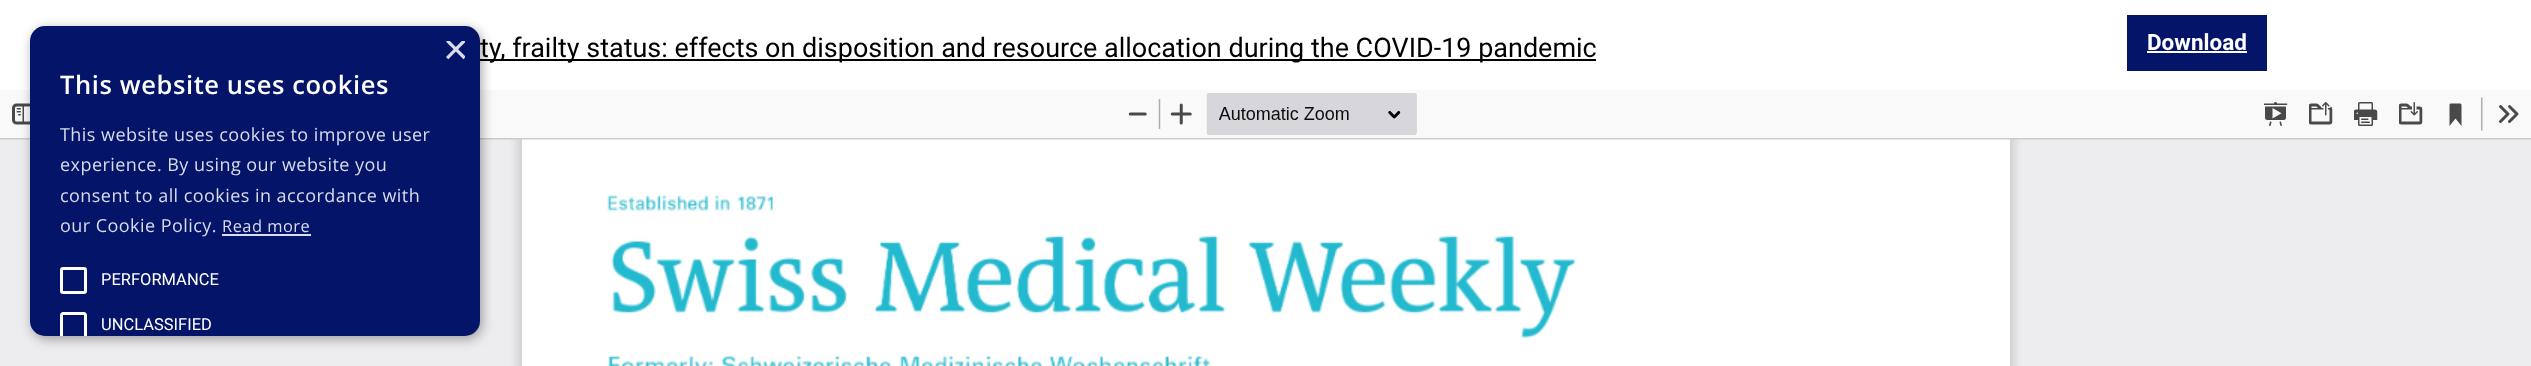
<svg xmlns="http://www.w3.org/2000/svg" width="2531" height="366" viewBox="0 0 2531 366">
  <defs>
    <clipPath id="clip1"><path d="M443 41h22v22H443z"/></clipPath>
  </defs>
  <rect width="100%" height="100%" fill="#fff"/>
  <path d="M480 59h1116v2H480z" fill="#000"/>
  <image x="0" y="90" width="2531" height="276" href="img/1.png"/>
  <rect x="32" y="29" width="450" height="310" rx="15" fill="#00000059" filter="blur(6px)"/>
  <path d="M2127 15h140v56H2127z" fill="#041469"/>
  <path d="M2147 51h100v2H2147z" fill="#fff"/>
  <text x="480" y="57" font-family="Roboto" font-size="27" fill="#000">ty, frailty status: effects on disposition and resource allocation during the COVID-19 pandemic</text>
  <rect x="30" y="26" width="450" height="310" rx="15" fill="#041469"/>
  <g clip-path="url(#clip1)">
    <text x="443" y="64" font-family="Liberation Sans" font-size="44" fill="#d9dce9">×</text>
  </g>
  <path d="M63 312C61.5 312 60 313.5 60 315V336H63V315H84V336H87V315C87 313.5 85.5 312 84 312Z" fill="#fff"/>
  <rect x="61.5" y="268.5" width="24" height="24" rx="1.5" fill="none" stroke="#fff" stroke-width="3"/>
  <text x="222" y="232" font-family="Open Sans" font-size="16.5" letter-spacing="0.45" fill="#d9dce9">Read more</text>
  <path d="M222 234h89v2H222z" fill="#d9dce9"/>
  <g font-family="Open Sans" font-size="18" letter-spacing="0.45" fill="#d9dce9">
    <text x="60" y="232">our Cookie Policy.</text>
    <text x="60" y="202">consent to all cookies in accordance with</text>
    <text x="60" y="171">experience. By using our website you</text>
    <text x="60" y="141">This website uses cookies to improve user</text>
  </g>
  <g font-family="Roboto" font-size="16.5" fill="#fff">
    <text x="101" y="330">UNCLASSIFIED</text>
    <text x="101" y="285">PERFORMANCE</text>
  </g>
  <text x="60" y="94" font-family="Open Sans" font-size="25.5" font-weight="600" letter-spacing="0.6" fill="#fff">This website uses cookies</text>
  <text x="2147" y="50" font-family="Roboto" font-size="22.5" font-weight="bold" fill="#fff">Download</text>
</svg>
